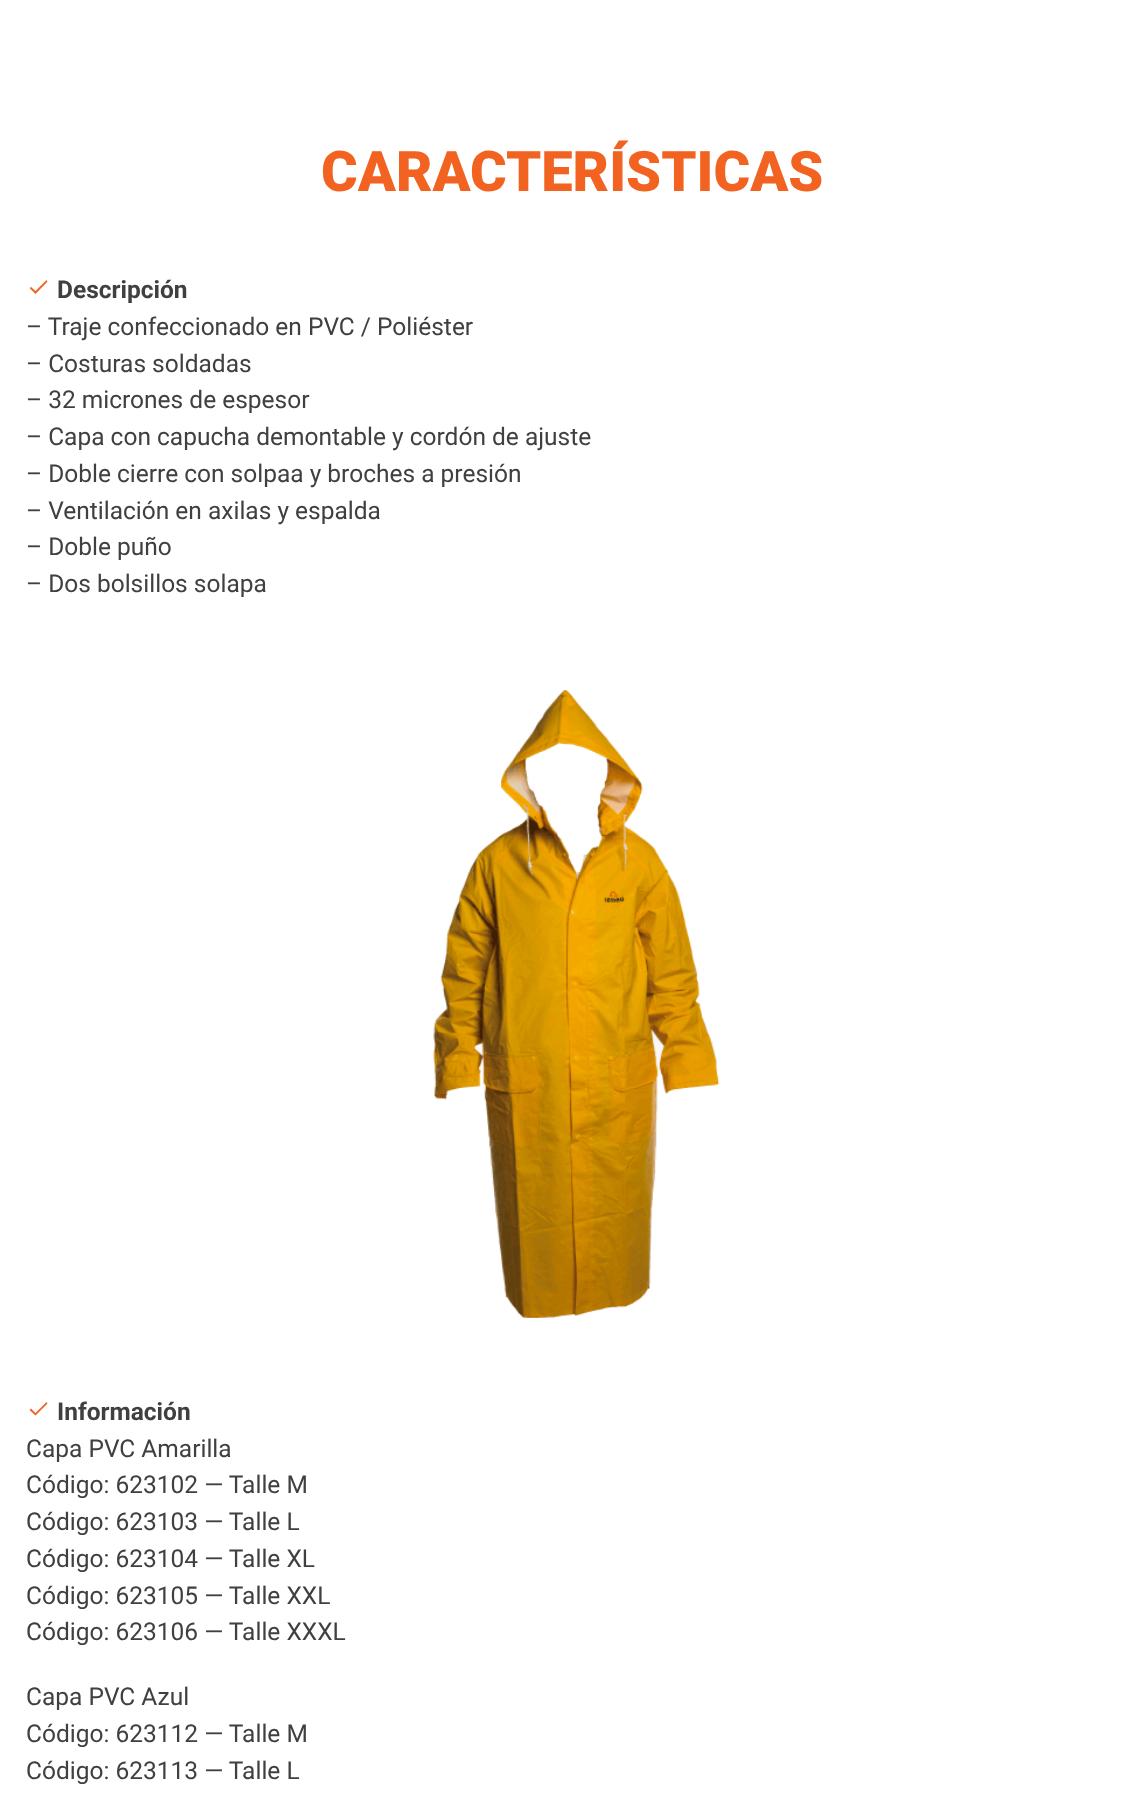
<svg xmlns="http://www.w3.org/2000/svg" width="1143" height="1795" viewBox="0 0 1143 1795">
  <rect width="100%" height="100%" fill="#fff"/>
  <path d="M35.5 291L31 287L29.5 288L35.5 294L47.5 281.5L46.5 280Z" fill="#f26322"/>
  <image x="433" y="690" width="287" height="628" href="img/1.png"/>
  <path d="M35.5 1413L31 1408.5L29.5 1410L35.5 1415.5L47.5 1403.5L46.5 1402Z" fill="#f26322"/>
  <text x="321" y="191" font-family="Roboto" font-size="56" font-weight="900" fill="#f26322">CARACTERÍSTICAS</text>
  <text x="57" y="298" font-family="Roboto" font-size="24.5" font-weight="bold" fill="#404041">Descripción</text>
  <g font-family="Roboto" font-size="24.5" fill="#404041">
    <text x="26" y="335">– Traje confeccionado en PVC / Poliéster</text>
    <text x="26" y="372">– Costuras soldadas</text>
    <text x="26" y="408">– 32 micrones de espesor</text>
    <text x="26" y="445">– Capa con capucha demontable y cordón de ajuste</text>
    <text x="26" y="482">– Doble cierre con solpaa y broches a presión</text>
    <text x="26" y="519">– Ventilación en axilas y espalda</text>
    <text x="26" y="555">– Doble puño</text>
    <text x="26" y="592">– Dos bolsillos solapa</text>
  </g>
  <text x="57" y="1420" font-family="Roboto" font-size="24.5" font-weight="bold" fill="#404041">Información</text>
  <g font-family="Roboto" font-size="24.5" fill="#404041">
    <text x="26" y="1457">Capa PVC Amarilla</text>
    <text x="26" y="1493">Código: 623102 — Talle M</text>
    <text x="26" y="1530">Código: 623103 — Talle L</text>
    <text x="26" y="1567">Código: 623104 — Talle XL</text>
    <text x="26" y="1604">Código: 623105 — Talle XXL</text>
    <text x="26" y="1640">Código: 623106 — Talle XXXL</text>
    <text x="26" y="1705">Capa PVC Azul</text>
    <text x="26" y="1742">Código: 623112 — Talle M</text>
    <text x="26" y="1779">Código: 623113 — Talle L</text>
  </g>
</svg>
